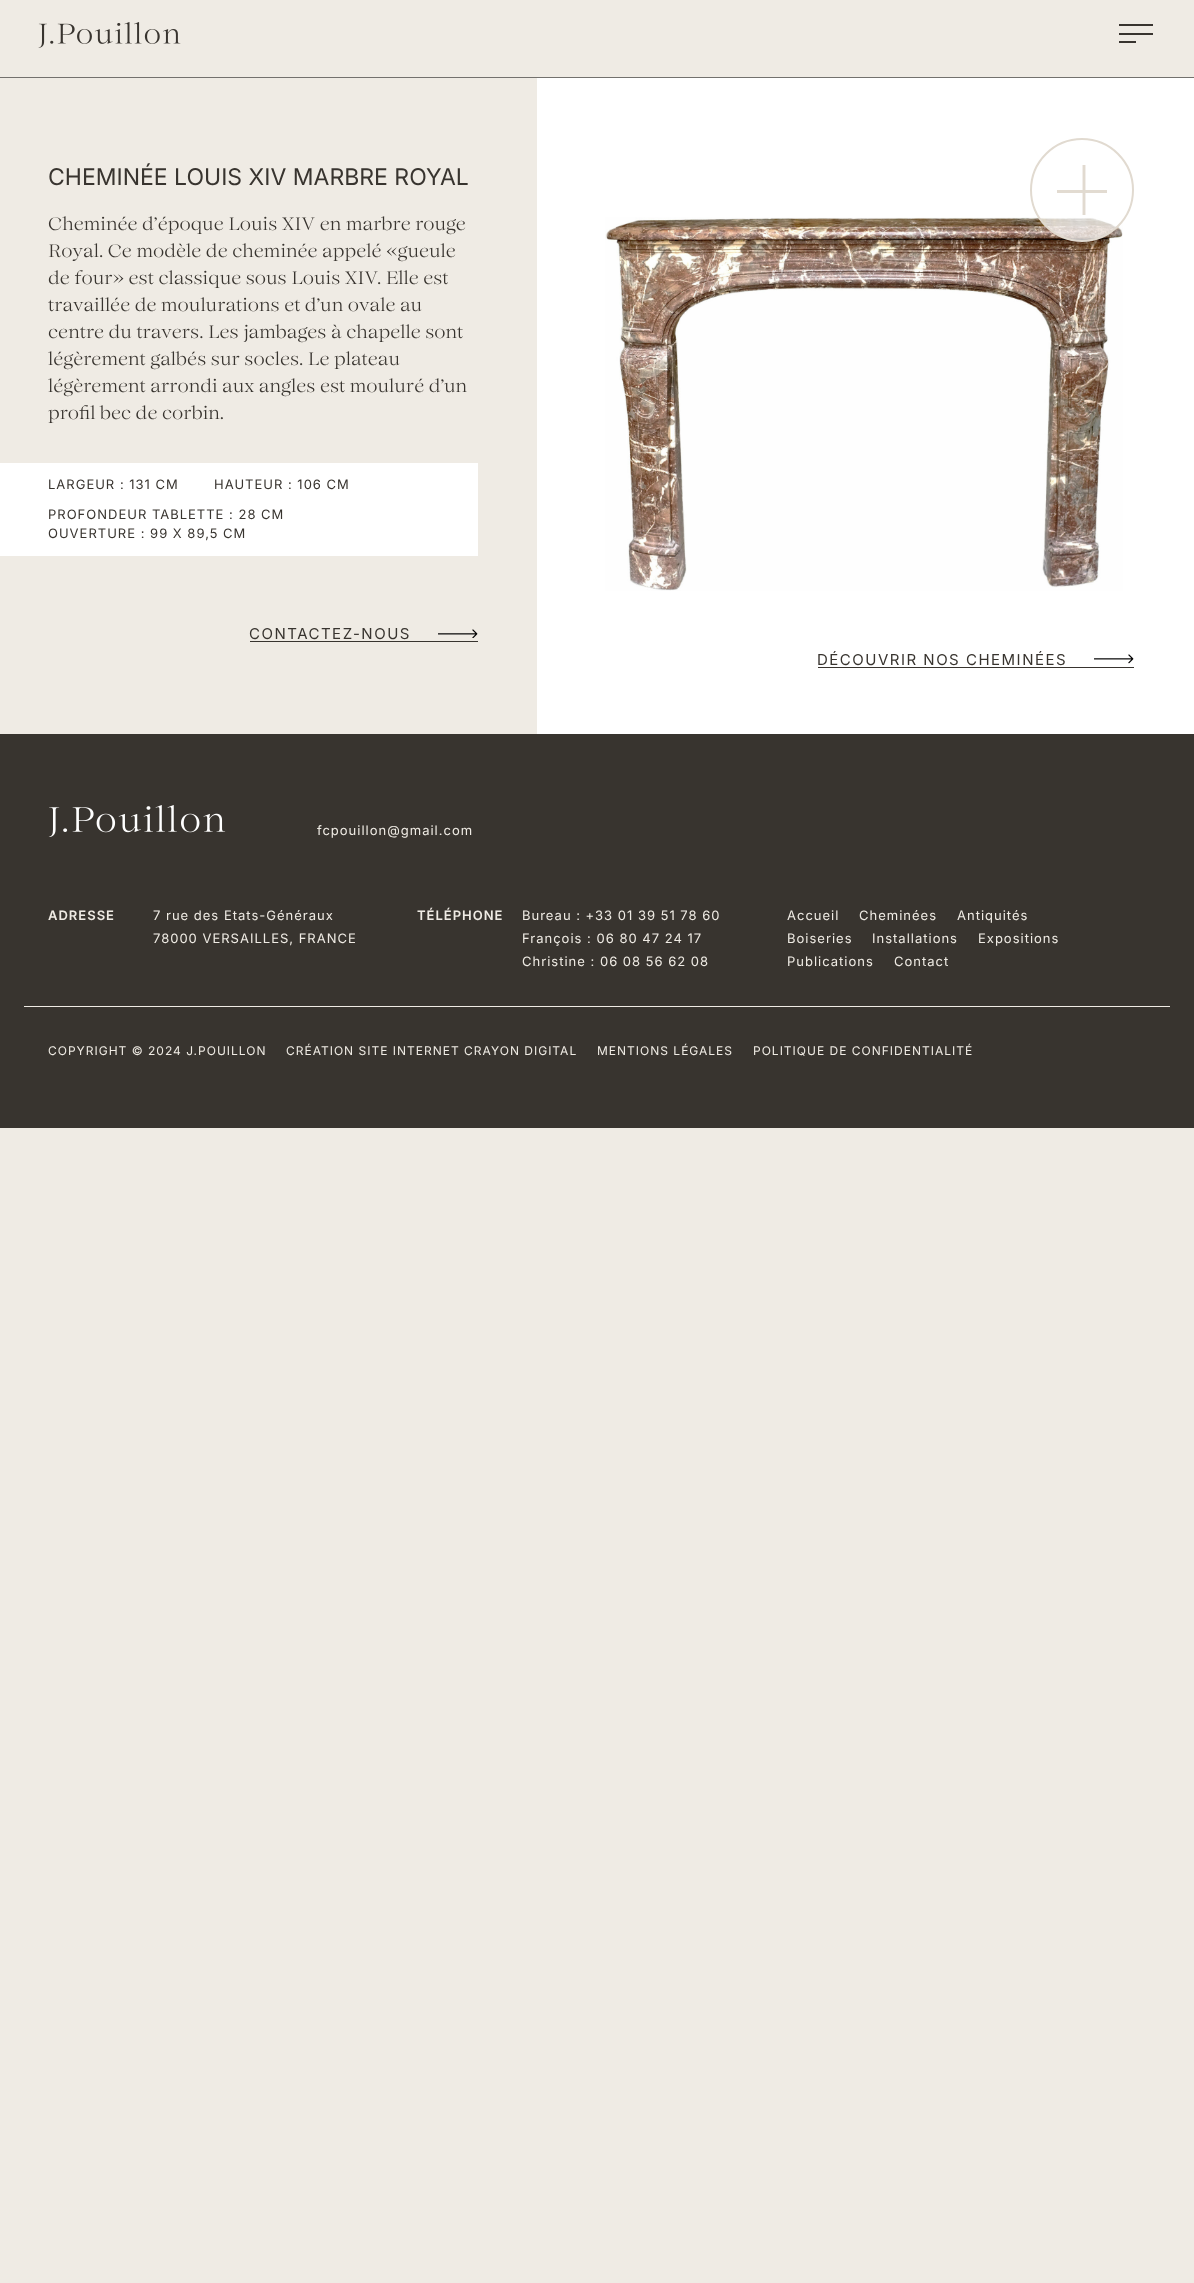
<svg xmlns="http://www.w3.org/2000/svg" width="1194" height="2283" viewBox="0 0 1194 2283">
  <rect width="100%" height="100%" fill="#efebe4"/>
  <path d="M0 77h1194v1H0z" fill="#73716d"/>
  <image x="38" y="22" width="143" height="26" href="img/1.png"/>
  <path d="M1119 24h34v2H1119z" fill="#38342f"/>
  <path d="M1119 33h34v2H1119z" fill="#38342f"/>
  <path d="M1119 41h17v2H1119z" fill="#38342f"/>
  <path d="M0 463h478v93H0z" fill="#fff"/>
  <path d="M250 641h228v1H250z" fill="#38342f"/>
  <image x="438" y="629" width="40" height="9" href="img/2.png"/>
  <path d="M537 78h657v656H537z" fill="#fff"/>
  <image x="605" y="217" width="518" height="374" href="img/3.png"/>
  <circle cx="1082" cy="190" r="51" fill="#ffffffba" stroke="#e1dad0" stroke-width="2"/>
  <path d="M1084 165V215" fill="none" stroke="#e1dad0" stroke-width="2.9"/>
  <path d="M1057 190h50v3H1057z" fill="#e1dad0f7"/>
  <path d="M818 667h316v1H818z" fill="#38342f"/>
  <image x="1094" y="654" width="40" height="10" href="img/4.png"/>
  <path d="M0 734h1194v394H0z" fill="#38342f"/>
  <image x="48" y="805" width="178" height="32" href="img/5.png"/>
  <path d="M24 1006h1146v1H24z" fill="#efebe4"/>
  <text x="48" y="185" font-family="Inter" font-size="23" fill="#38342f">CHEMINÉE LOUIS XIV MARBRE ROYAL</text>
  <g font-family="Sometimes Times" font-size="18" font-weight="500" fill="#38342f">
    <text x="48" y="230">Cheminée d’époque Louis XIV en marbre rouge</text>
    <text x="48" y="257">Royal. Ce modèle de cheminée appelé «gueule</text>
    <text x="48" y="284">de four» est classique sous Louis XIV. Elle est</text>
    <text x="48" y="311">travaillée de moulurations et d’un ovale au</text>
    <text x="48" y="338">centre du travers. Les jambages à chapelle sont</text>
    <text x="48" y="365">légèrement galbés sur socles. Le plateau</text>
    <text x="48" y="392">légèrement arrondi aux angles est mouluré d’un</text>
    <text x="48" y="419">profil bec de corbin.</text>
  </g>
  <g font-family="Inter" font-size="13" letter-spacing="1" fill="#38342f">
    <text x="48" y="489">LARGEUR : 131 CM</text>
    <text x="214" y="489">HAUTEUR : 106 CM</text>
    <text x="48" y="519">PROFONDEUR TABLETTE : 28 CM</text>
    <text x="48" y="538">OUVERTURE : 99 X 89,5 CM</text>
  </g>
  <g font-family="Inter" font-size="15" letter-spacing="1.5" fill="#38342f">
    <text x="249" y="639">CONTACTEZ-NOUS</text>
    <text x="817" y="665">DÉCOUVRIR NOS CHEMINÉES</text>
  </g>
  <text x="317" y="835" font-family="Inter" font-size="13" letter-spacing="1" fill="#efebe4">fcpouillon@gmail.com</text>
  <text x="48" y="920" font-family="Inter" font-size="13" font-weight="600" letter-spacing="1" fill="#efebe4">ADRESSE</text>
  <g font-family="Inter" font-size="13" letter-spacing="1" fill="#efebe4">
    <text x="153" y="920">7 rue des Etats-Généraux</text>
    <text x="153" y="943">78000 VERSAILLES, FRANCE</text>
  </g>
  <text x="417" y="920" font-family="Inter" font-size="13" font-weight="600" letter-spacing="1" fill="#efebe4">TÉLÉPHONE</text>
  <g font-family="Inter" font-size="13" letter-spacing="1" fill="#efebe4">
    <text x="522" y="920">Bureau : +33 01 39 51 78 60</text>
    <text x="522" y="943">François : 06 80 47 24 17</text>
    <text x="522" y="966">Christine : 06 08 56 62 08</text>
    <text x="787" y="920">Accueil</text>
    <text x="859" y="920">Cheminées</text>
    <text x="957" y="920">Antiquités</text>
    <text x="787" y="943">Boiseries</text>
    <text x="872" y="943">Installations</text>
    <text x="978" y="943">Expositions</text>
    <text x="787" y="966">Publications</text>
    <text x="894" y="966">Contact</text>
  </g>
  <g font-family="Inter" font-size="12" letter-spacing="1" fill="#efebe4">
    <text x="48" y="1055">COPYRIGHT © 2024 J.POUILLON</text>
    <text x="286" y="1055">CRÉATION SITE INTERNET CRAYON DIGITAL</text>
    <text x="597" y="1055">MENTIONS LÉGALES</text>
    <text x="753" y="1055">POLITIQUE DE CONFIDENTIALITÉ</text>
  </g>
</svg>
